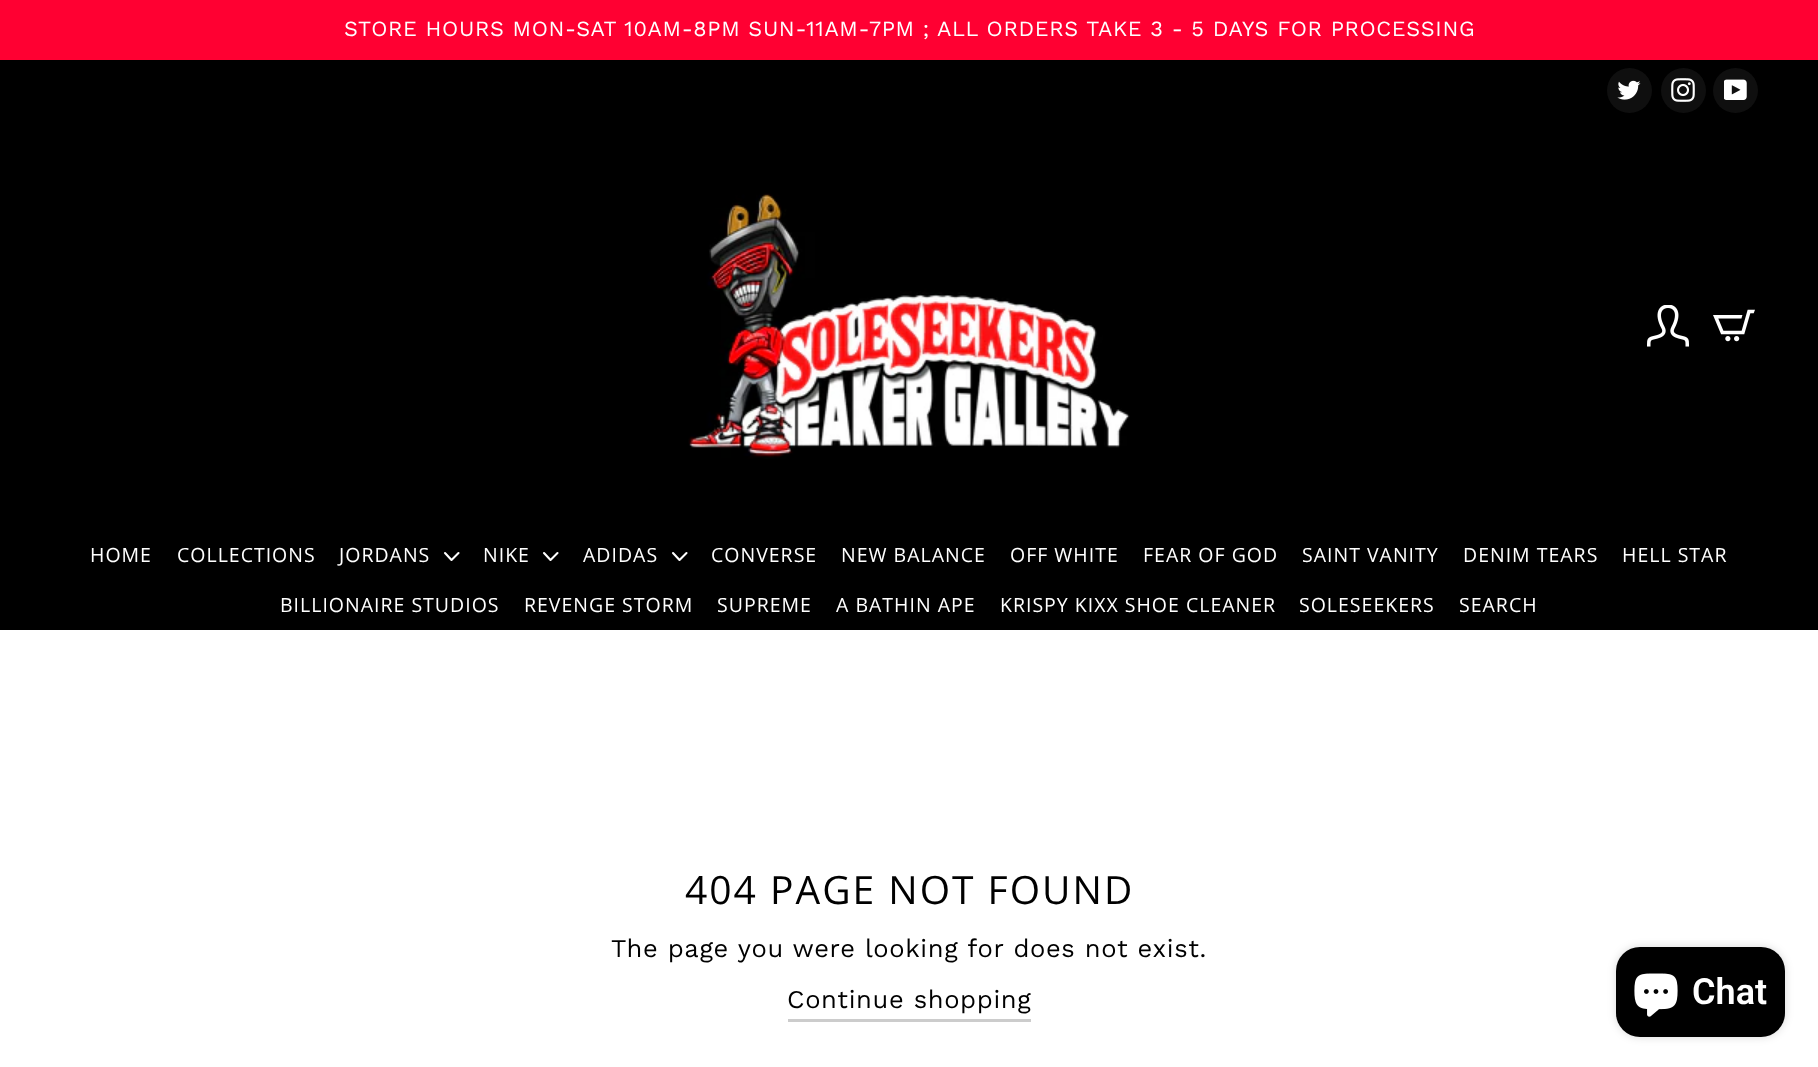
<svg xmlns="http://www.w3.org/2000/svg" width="1818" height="1067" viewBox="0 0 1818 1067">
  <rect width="100%" height="100%" fill="#fff"/>
  <path d="M0 0h1818v60H0z" fill="#ff0032"/>
  <path d="M0 60h1818v570H0z" fill="#000"/>
  <circle cx="1629.5" cy="90.5" r="22.5" fill="#0f0f0f"/>
  <image x="1617" y="80" width="24" height="20" href="img/1.png"/>
  <circle cx="1683.5" cy="90.5" r="22.5" fill="#0f0f0f"/>
  <image x="1671" y="78" width="24" height="24" href="img/2.png"/>
  <circle cx="1735.5" cy="90.5" r="22.5" fill="#0f0f0f"/>
  <image x="1724" y="79" width="23" height="21" href="img/3.png"/>
  <image x="688" y="193" width="442" height="266" href="img/4.png"/>
  <image x="1647" y="305" width="42" height="42" href="img/5.png"/>
  <image x="1713" y="309" width="42" height="33" href="img/6.png"/>
  <path d="M445 553L451.5 560L458.5 553" fill="none" stroke="#fff" stroke-width="2.1" stroke-linecap="round" stroke-linejoin="round"/>
  <path d="M544 553L550.5 560L557.5 553" fill="none" stroke="#fff" stroke-width="2.1" stroke-linecap="round" stroke-linejoin="round"/>
  <path d="M673 553L679.5 560L686.5 553" fill="none" stroke="#fff" stroke-width="2.1" stroke-linecap="round" stroke-linejoin="round"/>
  <path d="M788 1019h243v3H788z" fill="#ccc"/>
  <rect x="1616" y="947" width="169" height="90" rx="24" fill="#00000026" filter="blur(4px)"/>
  <rect x="1616" y="947" width="169" height="90" rx="24" fill="#000"/>
  <image x="1634" y="973" width="44" height="44" href="img/7.png"/>
  <text x="344" y="36" font-family="Work Sans" font-size="21.67" letter-spacing="0.65" fill="#fff">STORE HOURS MON-SAT 10AM-8PM SUN-11AM-7PM ; ALL ORDERS TAKE 3 - 5 DAYS FOR PROCESSING</text>
  <g font-family="Open Sans" font-size="19.5" letter-spacing="1" fill="#fff">
    <text x="90" y="562">HOME</text>
    <text x="177" y="562">COLLECTIONS</text>
    <text x="339" y="562">JORDANS</text>
    <text x="483" y="562">NIKE</text>
    <text x="583" y="562">ADIDAS</text>
    <text x="711" y="562">CONVERSE</text>
    <text x="841" y="562">NEW BALANCE</text>
    <text x="1010" y="562">OFF WHITE</text>
    <text x="1143" y="562">FEAR OF GOD</text>
    <text x="1302" y="562">SAINT VANITY</text>
    <text x="1463" y="562">DENIM TEARS</text>
    <text x="1622" y="562">HELL STAR</text>
    <text x="280" y="612">BILLIONAIRE STUDIOS</text>
    <text x="524" y="612">REVENGE STORM</text>
    <text x="717" y="612">SUPREME</text>
    <text x="836" y="612">A BATHIN APE</text>
    <text x="1000" y="612">KRISPY KIXX SHOE CLEANER</text>
    <text x="1299" y="612">SOLESEEKERS</text>
    <text x="1459" y="612">SEARCH</text>
  </g>
  <text x="685" y="904" font-family="Open Sans" font-size="39" letter-spacing="2" fill="#000">404 PAGE NOT FOUND</text>
  <g font-family="Work Sans" font-size="25.5" letter-spacing="0.65" fill="#000">
    <text x="611" y="957">The page you were looking for does not exist.</text>
    <text x="787" y="1008">Continue shopping</text>
  </g>
  <text x="1692" y="1004" font-family="Roboto" font-size="36" font-weight="600" fill="#fff">Chat</text>
</svg>
